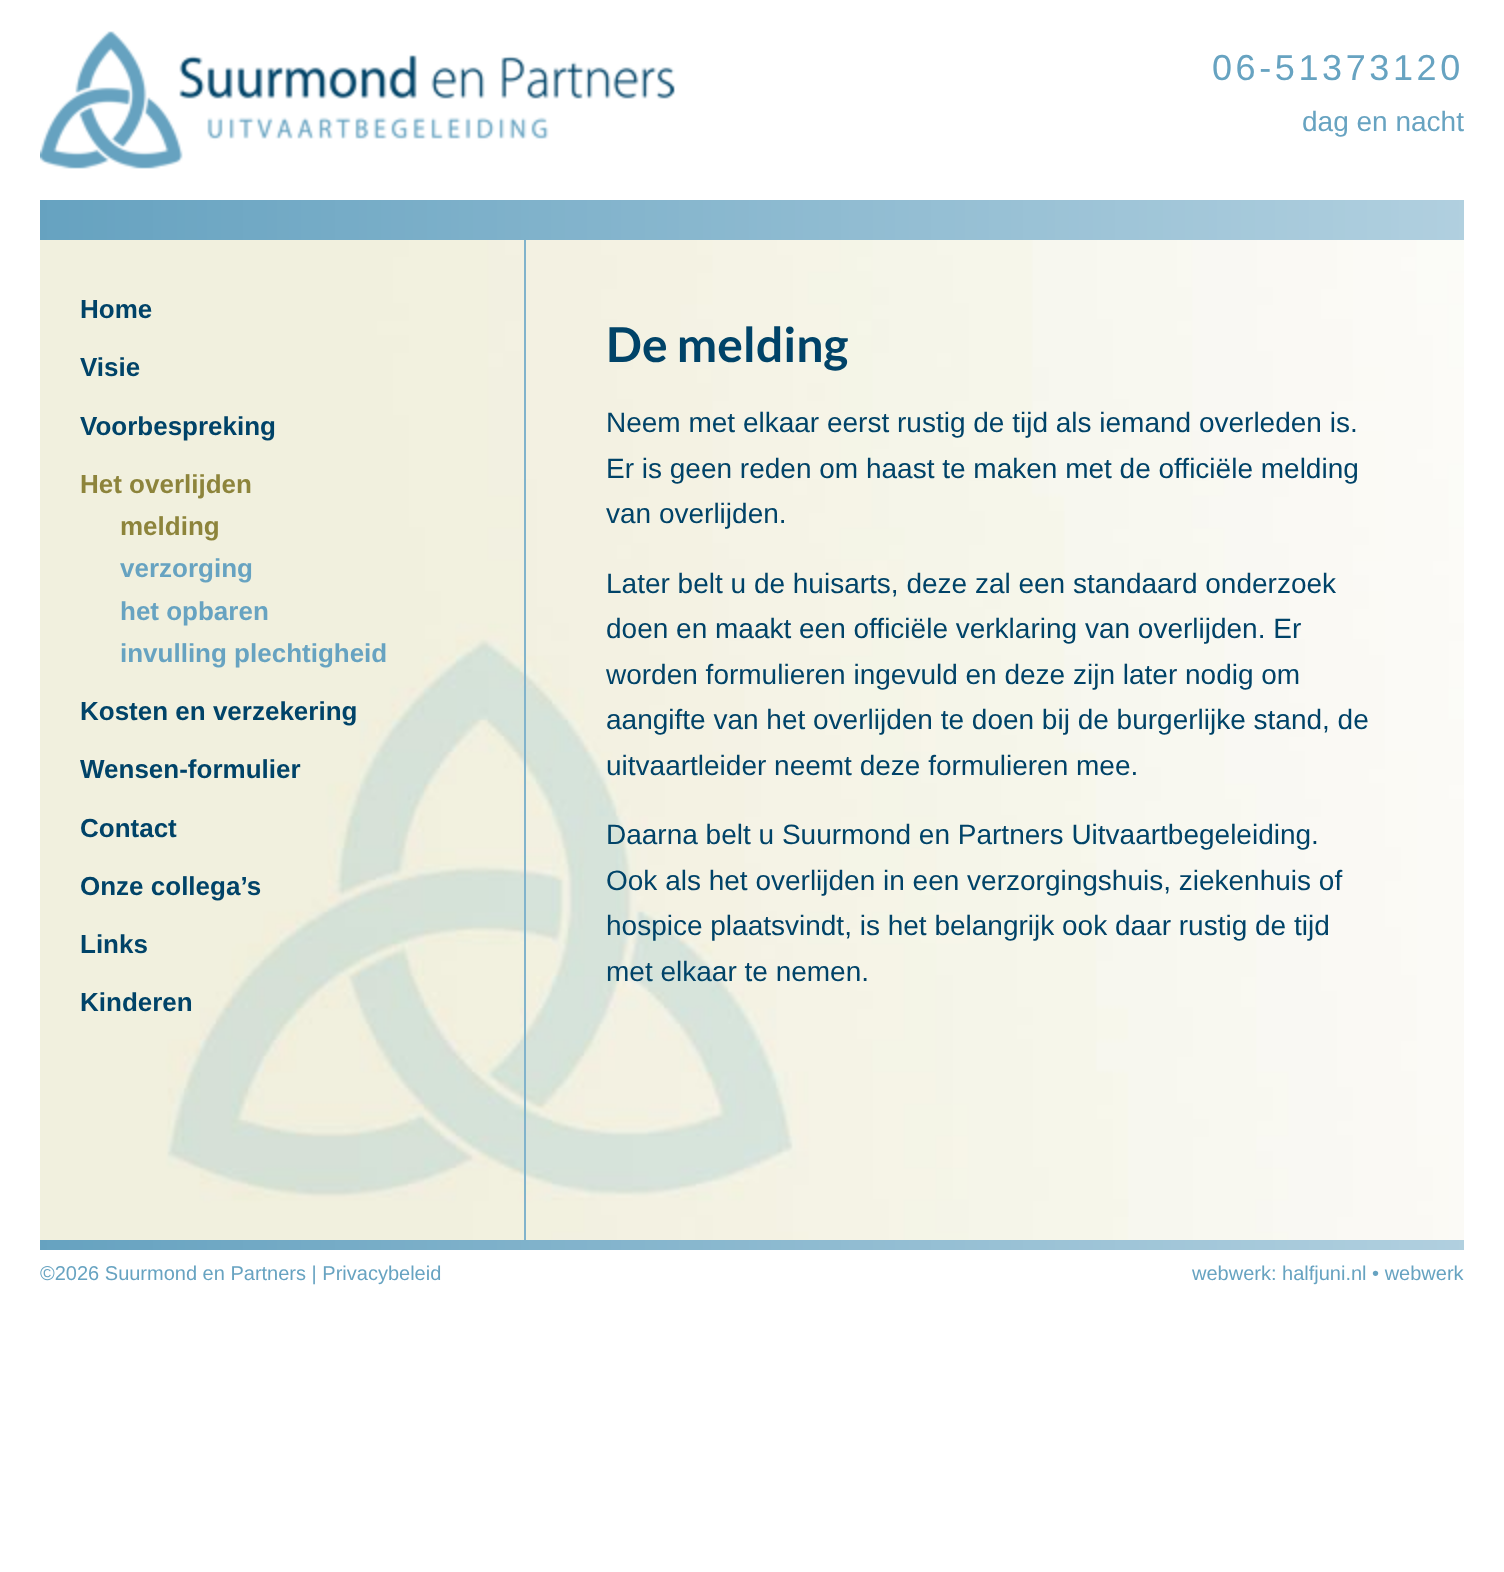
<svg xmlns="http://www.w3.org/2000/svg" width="1504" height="1572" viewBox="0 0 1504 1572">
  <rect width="100%" height="100%" fill="#fff"/>
  <image x="40" y="31" width="635" height="138" href="img/1.png"/>
  <image x="40" y="200" width="1424" height="40" href="img/2.png"/>
  <image x="40" y="240" width="1424" height="1000" href="img/3.png"/>
  <path d="M524 240h2v1000H524z" fill="#81b3cb"/>
  <image x="40" y="1240" width="1424" height="10" href="img/4.png"/>
  <text x="1212" y="80" font-family="Liberation Sans" font-size="36" letter-spacing="3.6" fill="#67a3c1">06-51373120</text>
  <text x="1302" y="131" font-family="Liberation Sans" font-size="28" fill="#67a3c1">dag en nacht</text>
  <g font-family="Liberation Sans" font-size="26" font-weight="bold" fill="#004368">
    <text x="80" y="318">Home</text>
    <text x="80" y="376">Visie</text>
    <text x="80" y="435">Voorbespreking</text>
  </g>
  <g font-family="Liberation Sans" font-size="26" font-weight="bold" fill="#8d843b">
    <text x="80" y="493">Het overlijden</text>
    <text x="120" y="535">melding</text>
  </g>
  <g font-family="Liberation Sans" font-size="26" font-weight="bold" fill="#67a3c1">
    <text x="120" y="577">verzorging</text>
    <text x="120" y="620">het opbaren</text>
    <text x="120" y="662">invulling plechtigheid</text>
  </g>
  <g font-family="Liberation Sans" font-size="26" font-weight="bold" fill="#004368">
    <text x="80" y="720">Kosten en verzekering</text>
    <text x="80" y="778">Wensen-formulier</text>
    <text x="80" y="837">Contact</text>
    <text x="80" y="895">Onze collega’s</text>
    <text x="80" y="953">Links</text>
    <text x="80" y="1011">Kinderen</text>
  </g>
  <text x="606" y="362" font-family="Lato" font-size="48" font-weight="bold" fill="#004368">De melding</text>
  <g font-family="Liberation Sans" font-size="28" fill="#004368">
    <text x="606" y="432">Neem met elkaar eerst rustig de tijd als iemand overleden is.</text>
    <text x="606" y="478">Er is geen reden om haast te maken met de officiële melding</text>
    <text x="606" y="523">van overlijden.</text>
    <text x="606" y="593">Later belt u de huisarts, deze zal een standaard onderzoek</text>
    <text x="606" y="638">doen en maakt een officiële verklaring van overlijden. Er</text>
    <text x="606" y="684">worden formulieren ingevuld en deze zijn later nodig om</text>
    <text x="606" y="729">aangifte van het overlijden te doen bij de burgerlijke stand, de</text>
    <text x="606" y="775">uitvaartleider neemt deze formulieren mee.</text>
    <text x="606" y="844">Daarna belt u Suurmond en Partners Uitvaartbegeleiding.</text>
    <text x="606" y="890">Ook als het overlijden in een verzorgingshuis, ziekenhuis of</text>
    <text x="606" y="935">hospice plaatsvindt, is het belangrijk ook daar rustig de tijd</text>
    <text x="606" y="981">met elkaar te nemen.</text>
  </g>
  <g font-family="Liberation Sans" font-size="20" fill="#67a3c1">
    <text x="40" y="1280">©2026 Suurmond en Partners | Privacybeleid</text>
    <text x="1192" y="1280">webwerk: halfjuni.nl • webwerk</text>
  </g>
</svg>
